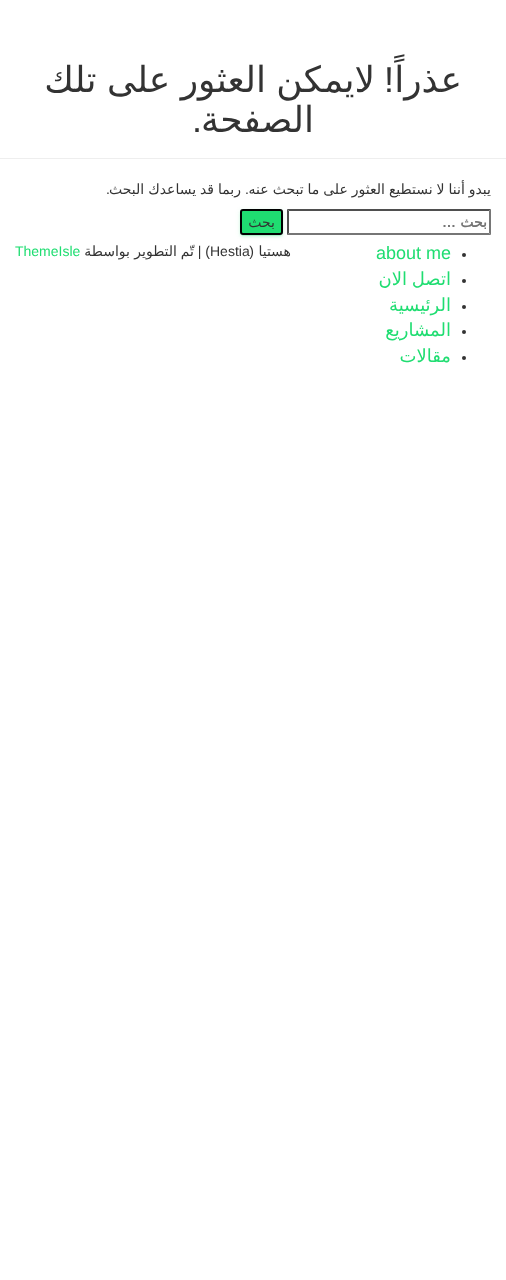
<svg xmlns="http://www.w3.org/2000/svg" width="506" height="1280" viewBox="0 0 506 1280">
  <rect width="100%" height="100%" fill="#fff"/>
  <path d="M0 158h506v1H0z" fill="#eee"/>
  <path d="M287 209H491L489 211H289Z" fill="#4f4f4f"/>
  <path d="M491 209V235L489 233V211Z" fill="#767676"/>
  <path d="M491 235H287L289 233H489Z" fill="#767676"/>
  <path d="M287 235V209L289 211V233Z" fill="#4f4f4f"/>
  <rect x="240" y="210" width="43" height="26" rx="3" fill="#1fdd711f" filter="blur(2.5px)"/>
  <rect x="242" y="214" width="39" height="22" rx="1" fill="#1fdd7133" filter="blur(0.5px)"/>
  <rect x="240" y="211" width="43" height="26" rx="3" fill="#1fdd7124" filter="blur(1px)"/>
  <rect x="241" y="210" width="41" height="24" rx="2" fill="#1fdd71" stroke="#000" stroke-width="2"/>
  <circle cx="464" cy="255" r="2" fill="#333"/>
  <circle cx="464" cy="281" r="2" fill="#333"/>
  <circle cx="464" cy="307" r="2" fill="#333"/>
  <circle cx="464" cy="332" r="2" fill="#333"/>
  <circle cx="464" cy="358" r="2" fill="#333"/>
  <text x="462" y="92" font-family="DejaVu Sans" font-size="36" direction="rtl" fill="#333">عذراً</text>
  <text x="394" y="92" font-family="Liberation Sans" font-size="36" direction="rtl" fill="#333">!</text>
  <g font-family="DejaVu Sans" font-size="36" direction="rtl" fill="#333">
    <text x="375" y="92" word-spacing="-1">لايمكن العثور على تلك</text>
    <text x="314" y="132">الصفحة</text>
  </g>
  <text x="202" y="132" font-family="Liberation Sans" font-size="36" direction="rtl" fill="#333">.</text>
  <text x="491" y="194" word-spacing="-0.5" font-family="DejaVu Sans" font-size="14" direction="rtl" fill="#333">يبدو أننا لا نستطيع العثور على ما تبحث عنه</text>
  <text x="249" y="194" font-family="Liberation Sans" font-size="14" direction="rtl" fill="#333">.</text>
  <text x="241" y="194" word-spacing="-0.5" font-family="DejaVu Sans" font-size="14" direction="rtl" fill="#333">ربما قد يساعدك البحث</text>
  <text x="110" y="194" font-family="Liberation Sans" font-size="14" direction="rtl" fill="#333">.</text>
  <text x="487" y="227" font-family="DejaVu Sans" font-size="14" font-weight="bold" direction="rtl" fill="#757575">بحث</text>
  <text x="456" y="227" font-family="Liberation Sans" font-size="14" font-weight="bold" direction="rtl" fill="#757575">…</text>
  <text x="275" y="227" font-family="DejaVu Sans" font-size="14" direction="rtl" fill="#333">بحث</text>
  <text x="376" y="259" font-family="Liberation Sans" font-size="18" fill="#1fdd71">about me</text>
  <g font-family="DejaVu Sans" font-size="18" direction="rtl" fill="#1fdd71">
    <text x="451" y="285" word-spacing="-1">اتصل الان</text>
    <text x="451" y="311">الرئيسية</text>
    <text x="451" y="336">المشاريع</text>
    <text x="451" y="362">مقالات</text>
  </g>
  <text x="291" y="256" font-family="DejaVu Sans" font-size="14" direction="rtl" fill="#333">هستيا</text>
  <text x="254" y="256" font-family="Liberation Sans" font-size="14" direction="rtl" fill="#333">(</text>
  <text x="210" y="256" font-family="Liberation Sans" font-size="14" fill="#333">Hestia</text>
  <text x="210" y="256" font-family="Liberation Sans" font-size="14" direction="rtl" fill="#333">) |</text>
  <g font-family="DejaVu Sans" font-size="14" direction="rtl" fill="#333">
    <text x="194" y="256">تّم</text>
    <text x="177" y="256">التطوير</text>
    <text x="130" y="256">بواسطة</text>
  </g>
  <text x="15" y="256" font-family="Liberation Sans" font-size="14" fill="#1fdd71">ThemeIsle</text>
</svg>
